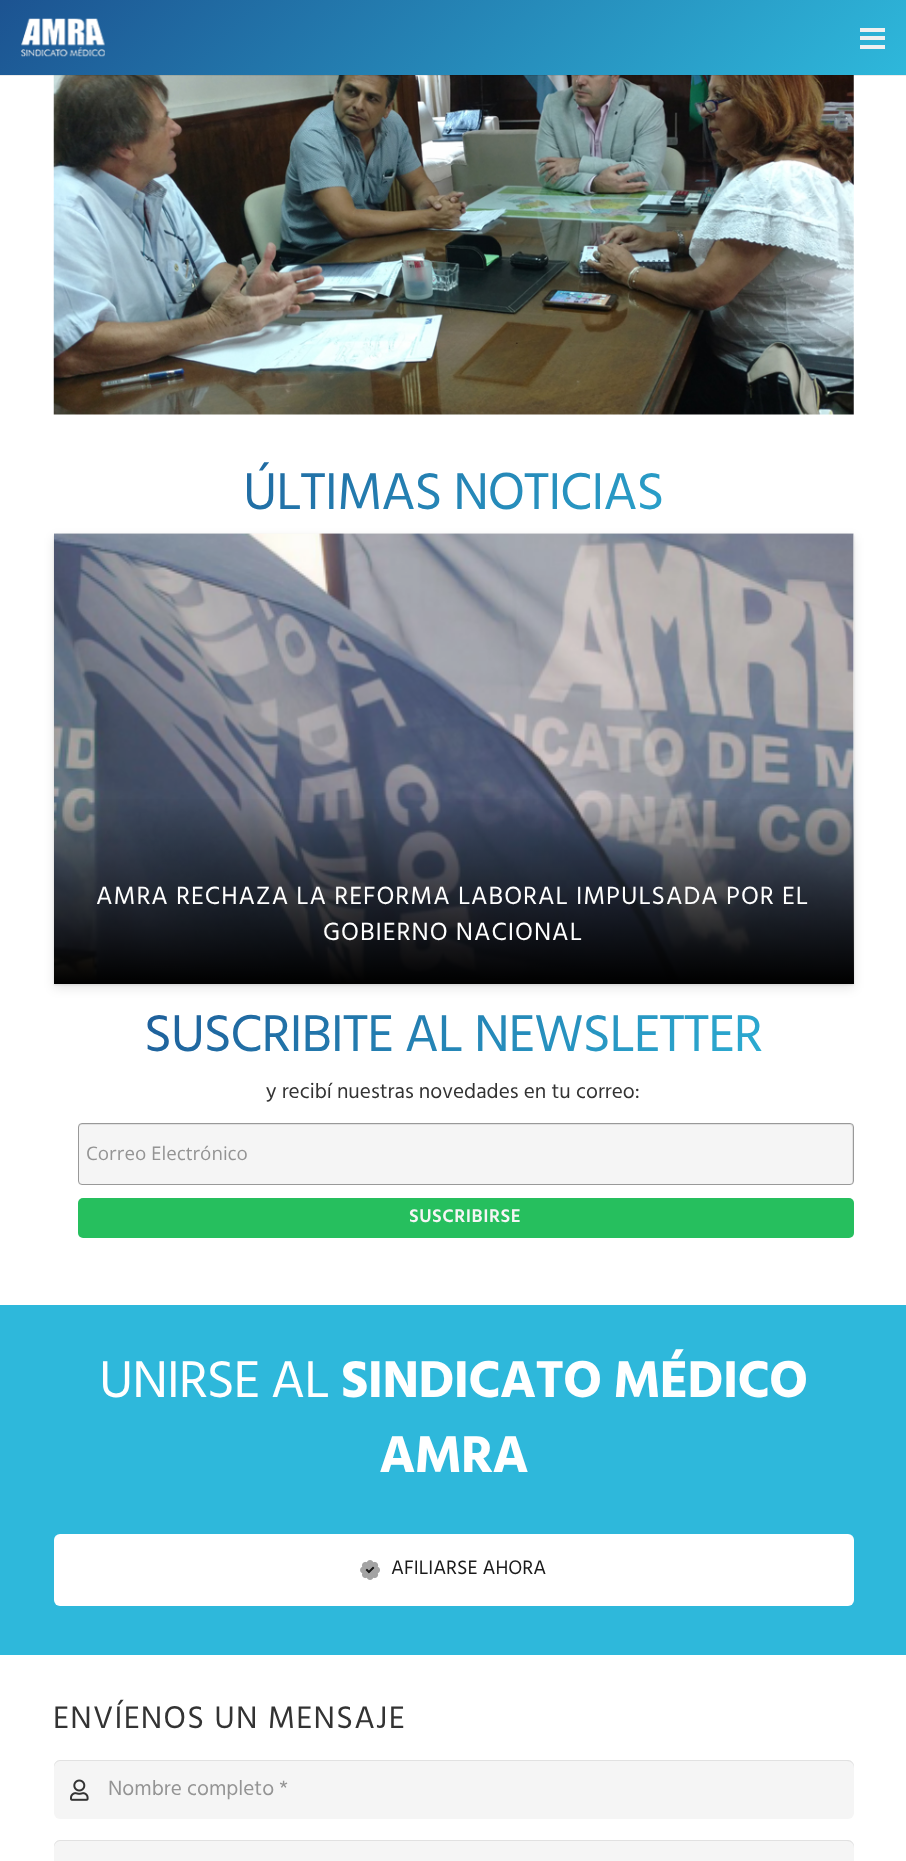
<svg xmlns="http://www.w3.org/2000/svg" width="906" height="1861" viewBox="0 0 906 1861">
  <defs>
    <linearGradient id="g1" gradientUnits="userSpaceOnUse" x1="208" y1="-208" x2="698" y2="283"><stop offset="0" stop-color="#1c5391"/><stop offset="1" stop-color="#2eb8db"/></linearGradient>
    <clipPath id="clip1"><path d="M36 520H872V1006H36ZM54 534H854V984H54Z" clip-rule="evenodd"/></clipPath>
    <clipPath id="clip2"><path d="M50 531H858V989H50ZM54 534H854V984H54Z" clip-rule="evenodd"/></clipPath>
    <linearGradient id="g2" gradientUnits="userSpaceOnUse" x1="235" y1="278" x2="672" y2="715"><stop offset="0" stop-color="#1c5391"/><stop offset="1" stop-color="#2eb8db"/></linearGradient>
    <linearGradient id="g3" gradientUnits="userSpaceOnUse" x1="235" y1="819" x2="672" y2="1257"><stop offset="0" stop-color="#1c5391"/><stop offset="1" stop-color="#2eb8db"/></linearGradient>
    <linearGradient id="g4" gradientUnits="userSpaceOnUse" x1="454" y1="795" x2="454" y2="984"><stop offset="0" stop-color="#000" stop-opacity="0"/><stop offset="1" stop-color="#000"/></linearGradient>
  </defs>
  <rect width="100%" height="100%" fill="#fff"/>
  <image x="53" y="75" width="801" height="340" href="img/2.png"/>
  <path d="M0 75h906v1H0z" fill="#00000014"/>
  <path d="M0 0h906v75H0z" fill="url(#g1)"/>
  <image x="21" y="18" width="84" height="39" href="img/1.png"/>
  <path d="M860 36h25v4H860z" fill="#f0f0f0"/>
  <path d="M860 28h25v4H860z" fill="#f0f0f0"/>
  <path d="M860 45h25v4H860z" fill="#f0f0f0"/>
  <g clip-path="url(#clip1)">
    <path d="M54 538h800v450H54z" fill="#0000001a" filter="blur(5.5px)"/>
  </g>
  <g clip-path="url(#clip2)">
    <path d="M54 535h800v450H54z" fill="#0000001a" filter="blur(1px)"/>
  </g>
  <image x="54" y="533" width="800" height="450" href="img/3.png"/>
  <path d="M54 799h800v185H54z" fill="url(#g4)"/>
  <rect x="78" y="1123" width="776" height="62" rx="4" fill="#f5f5f5"/>
  <path d="M81 1125H850C851 1125 852 1126 852 1128V1184C852 1183 853 1182 853 1182V1126C853 1125 852 1124 850 1124H82C80 1124 79 1125 79 1126V1128C79 1126 80 1125 81 1125Z" fill="#e1e1e1"/>
  <rect x="78.5" y="1123.5" width="775" height="61" rx="3.5" fill="none" stroke="#999"/>
  <rect x="78" y="1198" width="776" height="40" rx="5" fill="#26bf5e"/>
  <path d="M0 1305h906v350H0z" fill="#2eb8db"/>
  <rect x="54" y="1534" width="800" height="72" rx="6" fill="#fff"/>
  <image x="365" y="1566" width="10" height="8" href="img/5.png"/>
  <image x="360" y="1560" width="20" height="20" href="img/4.png"/>
  <rect x="54" y="1760" width="800" height="59" rx="6" fill="#f5f5f5"/>
  <image x="70" y="1779" width="19" height="22" href="img/6.png"/>
  <path d="M60 1761H847C851 1761 854 1764 854 1768V1766C854 1763 851 1760 848 1760H60C57 1760 54 1763 54 1766V1768C54 1764 57 1761 60 1761Z" fill="#e1e1e1"/>
  <rect x="54" y="1840" width="800" height="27" rx="6" fill="#f5f5f5"/>
  <path d="M60 1841H847C851 1841 854 1844 854 1848V1846C854 1843 851 1840 848 1840H60C57 1840 54 1843 54 1846V1848C54 1844 57 1841 60 1841Z" fill="#e1e1e1"/>
  <text x="243" y="509" font-family="Hind" font-size="53.1" letter-spacing="-1.1" fill="url(#g2)">ÚLTIMAS NOTICIAS</text>
  <g font-family="Hind" font-size="25.5" letter-spacing="1" fill="#fff">
    <text x="96" y="904">AMRA RECHAZA LA REFORMA LABORAL IMPULSADA POR EL</text>
    <text x="323" y="940">GOBIERNO NACIONAL</text>
  </g>
  <text x="144" y="1051" font-family="Hind" font-size="53.1" letter-spacing="-1.1" fill="url(#g3)">SUSCRIBITE AL NEWSLETTER</text>
  <text x="266" y="1098" font-family="Hind" font-size="21.25" fill="#333">y recibí nuestras novedades en tu correo:</text>
  <text x="86" y="1160" font-family="Open Sans" font-size="18.75" fill="#949494">Correo Electrónico</text>
  <text x="409" y="1222" font-family="Hind" font-size="18.75" font-weight="600" letter-spacing="0.5" fill="#f5f5f5">SUSCRIBIRSE</text>
  <text x="99" y="1397" font-family="Hind" font-size="53.1" letter-spacing="-1.1" fill="#fff">UNIRSE AL</text>
  <g font-family="Hind" font-size="53.1" font-weight="bold" letter-spacing="-1.1" fill="#fff">
    <text x="341" y="1397">SINDICATO MÉDICO</text>
    <text x="379" y="1472">AMRA</text>
  </g>
  <text x="391" y="1574" font-family="Hind" font-size="20" fill="#1a1a1a">AFILIARSE AHORA</text>
  <text x="53" y="1728" font-family="Hind" font-size="31.9" letter-spacing="1.25" fill="#333">ENVÍENOS UN MENSAJE</text>
  <text x="108" y="1795" font-family="Hind" font-size="21.25" fill="#949494">Nombre completo *</text>
</svg>
